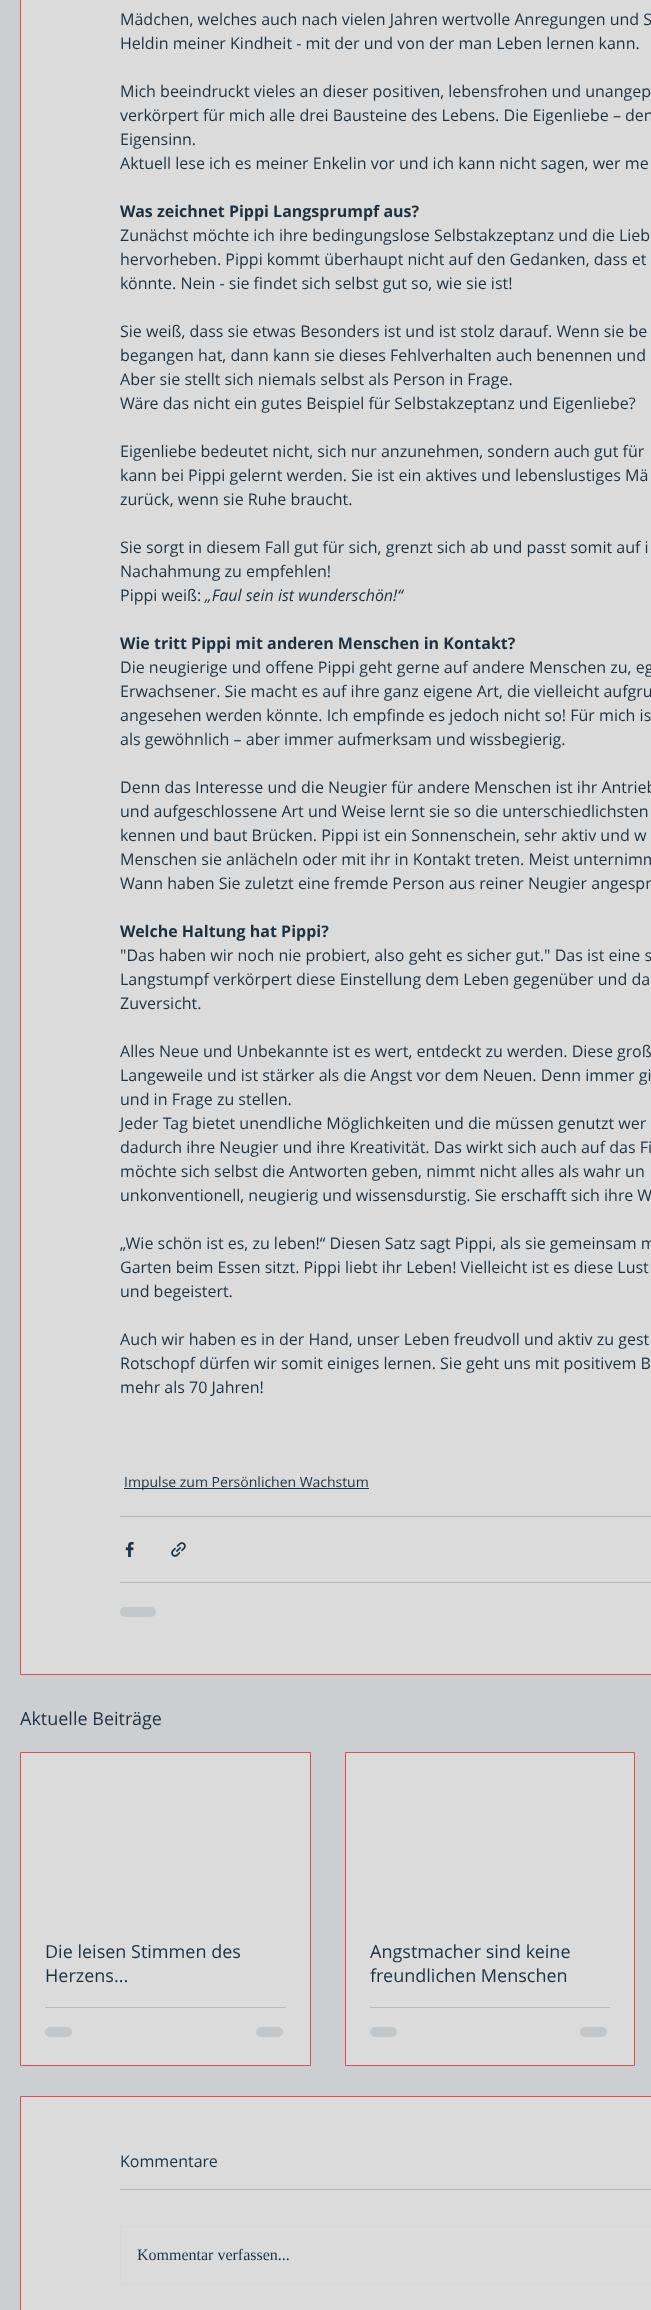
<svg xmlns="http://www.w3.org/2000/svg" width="651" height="2310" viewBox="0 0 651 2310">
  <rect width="100%" height="100%" fill="#cccfd2"/>
  <path d="M20.5 -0.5h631v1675H20.5z" fill="#dbdbdb" stroke="#e04c50"/>
  <path d="M124 1488h245v1H124z" fill="#1c3142"/>
  <path d="M120 1516h531v1H120z" fill="#b5b9bc"/>
  <image x="125" y="1542" width="9" height="15" href="img/1.png"/>
  <image x="171" y="1542" width="15" height="15" href="img/2.png"/>
  <path d="M120 1582h531v1H120z" fill="#b5b9bc"/>
  <rect x="120" y="1607" width="36" height="10" rx="5" fill="#c4c7c9"/>
  <path d="M20.5 1752.5h290v313H20.5z" fill="#dbdbdb" stroke="#e04c50"/>
  <path d="M45 2007h241v1H45z" fill="#b5b9bc"/>
  <rect x="45" y="2027" width="27" height="10" rx="5" fill="#c4c7c9"/>
  <rect x="256" y="2027" width="27" height="10" rx="5" fill="#c4c7c9"/>
  <path d="M345.5 1752.5h289v313H345.5z" fill="#dbdbdb" stroke="#e04c50"/>
  <path d="M370 2007h240v1H370z" fill="#b5b9bc"/>
  <rect x="370" y="2027" width="27" height="10" rx="5" fill="#c4c7c9"/>
  <rect x="580" y="2027" width="27" height="10" rx="5" fill="#c4c7c9"/>
  <path d="M20.5 2096.5h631v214H20.5z" fill="#dbdbdb" stroke="#e04c50"/>
  <path d="M120 2189h531v1H120z" fill="#b5b9bc"/>
  <path d="M120.5 2226.5h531v57H120.5z" fill="none" stroke="#d4d8da"/>
  <g font-family="Open Sans" font-size="16" fill="#1c3142">
    <text x="120" y="25">Mädchen, welches auch nach vielen Jahren wertvolle Anregungen und S</text>
    <text x="120" y="49">Heldin meiner Kindheit - mit der und von der man Leben lernen kann.</text>
    <text x="120" y="97">Mich beeindruckt vieles an dieser positiven, lebensfrohen und unangep</text>
    <text x="120" y="121">verkörpert für mich alle drei Bausteine des Lebens. Die Eigenliebe – den</text>
    <text x="120" y="145">Eigensinn.</text>
    <text x="120" y="169">Aktuell lese ich es meiner Enkelin vor und ich kann nicht sagen, wer me</text>
  </g>
  <text x="120" y="217" font-family="Open Sans" font-size="16" font-weight="bold" fill="#1c3142">Was zeichnet Pippi Langsprumpf aus?</text>
  <g font-family="Open Sans" font-size="16" fill="#1c3142">
    <text x="120" y="241">Zunächst möchte ich ihre bedingungslose Selbstakzeptanz und die Lieb</text>
    <text x="120" y="265">hervorheben. Pippi kommt überhaupt nicht auf den Gedanken, dass et</text>
    <text x="120" y="289">könnte. Nein - sie findet sich selbst gut so, wie sie ist!</text>
    <text x="120" y="337">Sie weiß, dass sie etwas Besonders ist und ist stolz darauf. Wenn sie be</text>
    <text x="120" y="361">begangen hat, dann kann sie dieses Fehlverhalten auch benennen und</text>
    <text x="120" y="385">Aber sie stellt sich niemals selbst als Person in Frage.</text>
    <text x="120" y="409">Wäre das nicht ein gutes Beispiel für Selbstakzeptanz und Eigenliebe?</text>
    <text x="120" y="457">Eigenliebe bedeutet nicht, sich nur anzunehmen, sondern auch gut für</text>
    <text x="120" y="481">kann bei Pippi gelernt werden. Sie ist ein aktives und lebenslustiges Mä</text>
    <text x="120" y="505">zurück, wenn sie Ruhe braucht.</text>
    <text x="120" y="553">Sie sorgt in diesem Fall gut für sich, grenzt sich ab und passt somit auf i</text>
    <text x="120" y="577">Nachahmung zu empfehlen!</text>
    <text x="120" y="601">Pippi weiß:</text>
  </g>
  <text x="205" y="601" font-family="Open Sans" font-size="16" font-style="italic" fill="#1c3142">„Faul sein ist wunderschön!“</text>
  <text x="120" y="649" font-family="Open Sans" font-size="16" font-weight="bold" fill="#1c3142">Wie tritt Pippi mit anderen Menschen in Kontakt?</text>
  <g font-family="Open Sans" font-size="16" fill="#1c3142">
    <text x="120" y="673">Die neugierige und offene Pippi geht gerne auf andere Menschen zu, eg</text>
    <text x="120" y="697">Erwachsener. Sie macht es auf ihre ganz eigene Art, die vielleicht aufgru</text>
    <text x="120" y="721">angesehen werden könnte. Ich empfinde es jedoch nicht so! Für mich is</text>
    <text x="120" y="745">als gewöhnlich – aber immer aufmerksam und wissbegierig.</text>
    <text x="120" y="793">Denn das Interesse und die Neugier für andere Menschen ist ihr Antrieb</text>
    <text x="120" y="817">und aufgeschlossene Art und Weise lernt sie so die unterschiedlichsten</text>
    <text x="120" y="841">kennen und baut Brücken. Pippi ist ein Sonnenschein, sehr aktiv und w</text>
    <text x="120" y="865">Menschen sie anlächeln oder mit ihr in Kontakt treten. Meist unternimm</text>
    <text x="120" y="889">Wann haben Sie zuletzt eine fremde Person aus reiner Neugier angespr</text>
  </g>
  <text x="120" y="937" font-family="Open Sans" font-size="16" font-weight="bold" fill="#1c3142">Welche Haltung hat Pippi?</text>
  <g font-family="Open Sans" font-size="16" fill="#1c3142">
    <text x="120" y="961">"Das haben wir noch nie probiert, also geht es sicher gut." Das ist eine s</text>
    <text x="120" y="985">Langstumpf verkörpert diese Einstellung dem Leben gegenüber und da</text>
    <text x="120" y="1009">Zuversicht.</text>
    <text x="120" y="1057">Alles Neue und Unbekannte ist es wert, entdeckt zu werden. Diese groß</text>
    <text x="120" y="1081">Langeweile und ist stärker als die Angst vor dem Neuen. Denn immer gi</text>
    <text x="120" y="1105">und in Frage zu stellen.</text>
    <text x="120" y="1129">Jeder Tag bietet unendliche Möglichkeiten und die müssen genutzt wer</text>
    <text x="120" y="1153">dadurch ihre Neugier und ihre Kreativität. Das wirkt sich auch auf das Fi</text>
    <text x="120" y="1177">möchte sich selbst die Antworten geben, nimmt nicht alles als wahr un</text>
    <text x="120" y="1201">unkonventionell, neugierig und wissensdurstig. Sie erschafft sich ihre W</text>
    <text x="120" y="1249">„Wie schön ist es, zu leben!“ Diesen Satz sagt Pippi, als sie gemeinsam m</text>
    <text x="120" y="1273">Garten beim Essen sitzt. Pippi liebt ihr Leben! Vielleicht ist es diese Lust</text>
    <text x="120" y="1297">und begeistert.</text>
    <text x="120" y="1345">Auch wir haben es in der Hand, unser Leben freudvoll und aktiv zu gest</text>
    <text x="120" y="1369">Rotschopf dürfen wir somit einiges lernen. Sie geht uns mit positivem B</text>
    <text x="120" y="1393">mehr als 70 Jahren!</text>
  </g>
  <text x="124" y="1487" font-family="Open Sans" font-size="14" fill="#1c3142">Impulse zum Persönlichen Wachstum</text>
  <g font-family="Open Sans" font-size="18" fill="#1c3142">
    <text x="20" y="1725">Aktuelle Beiträge</text>
    <text x="45" y="1958">Die leisen Stimmen des</text>
    <text x="45" y="1982">Herzens...</text>
    <text x="370" y="1958">Angstmacher sind keine</text>
    <text x="370" y="1982">freundlichen Menschen</text>
  </g>
  <text x="120" y="2167" font-family="Open Sans" font-size="16" fill="#1c3142">Kommentare</text>
  <text x="137" y="2260" font-family="Liberation Serif" font-size="16" fill="#1c3142">Kommentar verfassen...</text>
</svg>
